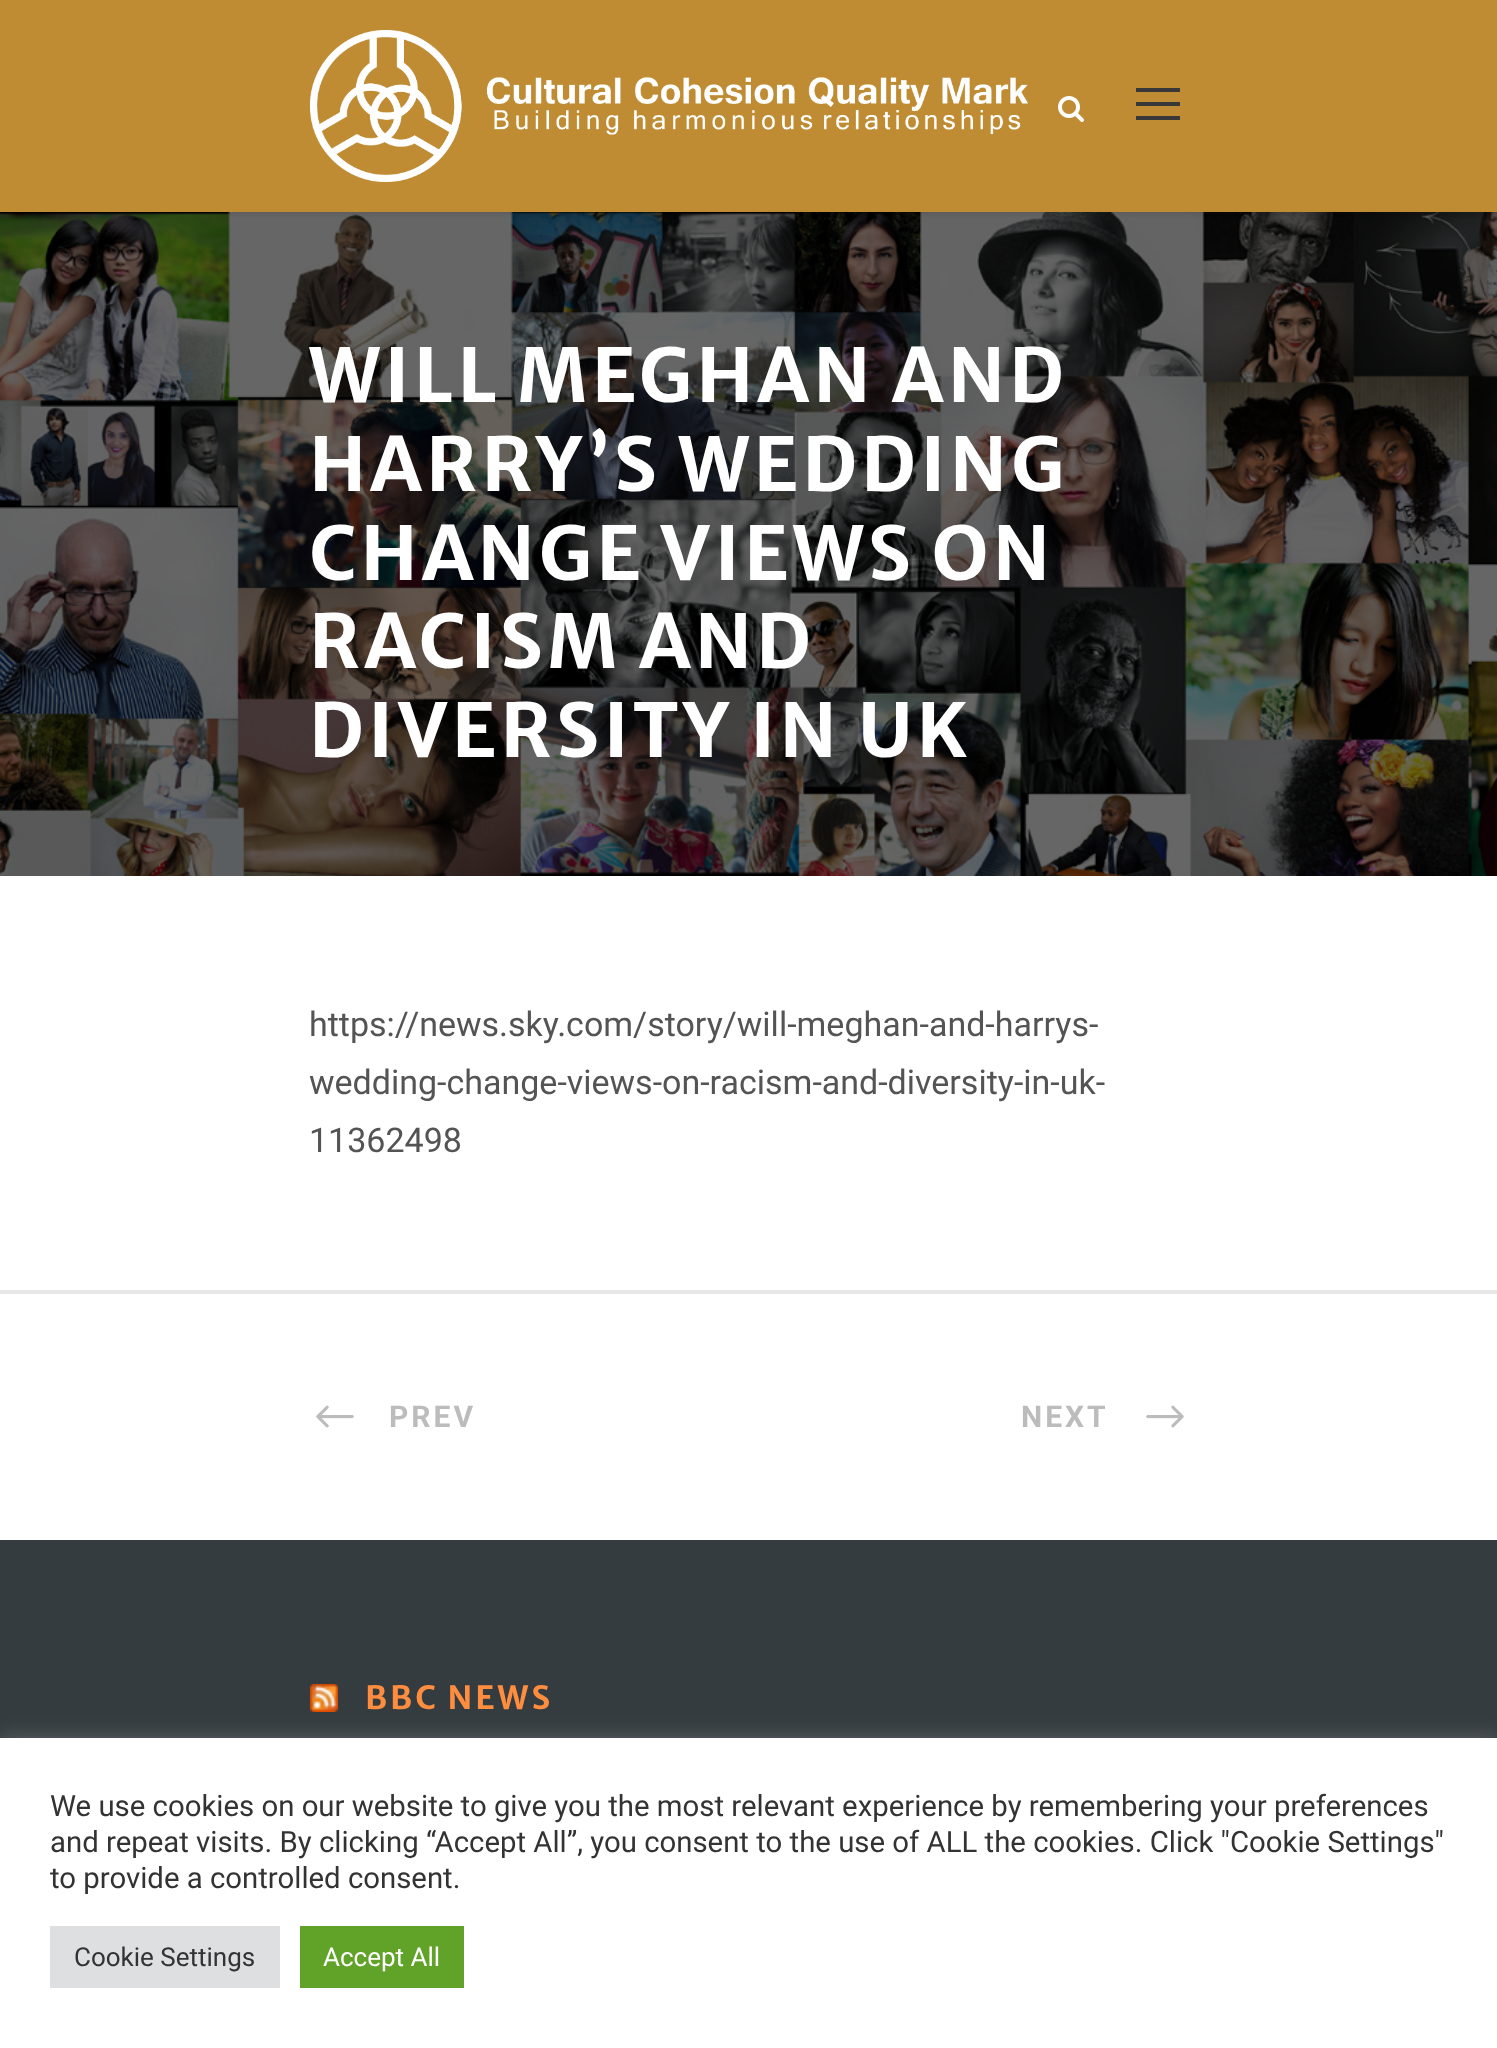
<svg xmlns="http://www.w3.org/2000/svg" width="1497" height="2048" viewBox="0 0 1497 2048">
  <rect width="100%" height="100%" fill="#fff"/>
  <image x="0" y="212" width="1497" height="664" href="img/3.png"/>
  <path d="M0 2h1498v212H0z" fill="#0000001a" filter="blur(2px)"/>
  <path d="M0 0h1497v212H0z" fill="#bf8c33"/>
  <image x="310" y="30" width="718" height="152" href="img/1.png"/>
  <image x="1058" y="96" width="26" height="26" href="img/2.png"/>
  <path d="M1136 88h44v4H1136z" fill="#383838"/>
  <path d="M1136 102h44v4H1136z" fill="#383838"/>
  <path d="M1136 116h44v4H1136z" fill="#383838"/>
  <path d="M0 1290h1497v4H0z" fill="#e6e6e6"/>
  <image x="316" y="1405" width="38" height="23" href="img/4.png"/>
  <image x="1146" y="1405" width="38" height="23" href="img/5.png"/>
  <path d="M0 1540h1497v198H0z" fill="#353c3f"/>
  <image x="310" y="1684" width="28" height="28" href="img/6.png"/>
  <path d="M0 1736h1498v310H0z" fill="#acabab4d" filter="blur(10px)"/>
  <path d="M0 1738h1497v310H0z" fill="#fff"/>
  <path d="M50 1926h230v62H50z" fill="#dedfe0"/>
  <path d="M300 1926h164v62H300z" fill="#61a229"/>
  <g font-family="Merriweather Sans" font-size="74" font-weight="bold" letter-spacing="4" fill="#fff">
    <text x="309" y="402">WILL MEGHAN AND</text>
    <text x="309" y="491">HARRY’S WEDDING</text>
    <text x="309" y="580">CHANGE VIEWS ON</text>
    <text x="309" y="668">RACISM AND</text>
    <text x="309" y="757">DIVERSITY IN UK</text>
  </g>
  <g font-family="Roboto" font-size="34" fill="#545454">
    <text x="309" y="1036">https://news.sky.com/story/will-meghan-and-harrys-</text>
    <text x="309" y="1094">wedding-change-views-on-racism-and-diversity-in-uk-</text>
    <text x="309" y="1152">11362498</text>
  </g>
  <g font-family="Roboto" font-size="30" font-weight="bold" letter-spacing="3" fill="#bcbcbc">
    <text x="389" y="1427">PREV</text>
    <text x="1021" y="1427">NEXT</text>
  </g>
  <text x="365" y="1709" font-family="Merriweather Sans" font-size="32" font-weight="bold" letter-spacing="3" fill="#ff8d3f">BBC NEWS</text>
  <g font-family="Roboto" font-size="29.35" fill="#333">
    <text x="50" y="1816">We use cookies on our website to give you the most relevant experience by remembering your preferences</text>
    <text x="50" y="1852">and repeat visits. By clicking “Accept All”, you consent to the use of ALL the cookies. Click "Cookie Settings"</text>
    <text x="50" y="1888">to provide a controlled consent.</text>
  </g>
  <text x="74" y="1966" font-family="Roboto" font-size="26" fill="#333">Cookie Settings</text>
  <text x="323" y="1966" font-family="Roboto" font-size="26" fill="#fff">Accept All</text>
</svg>
